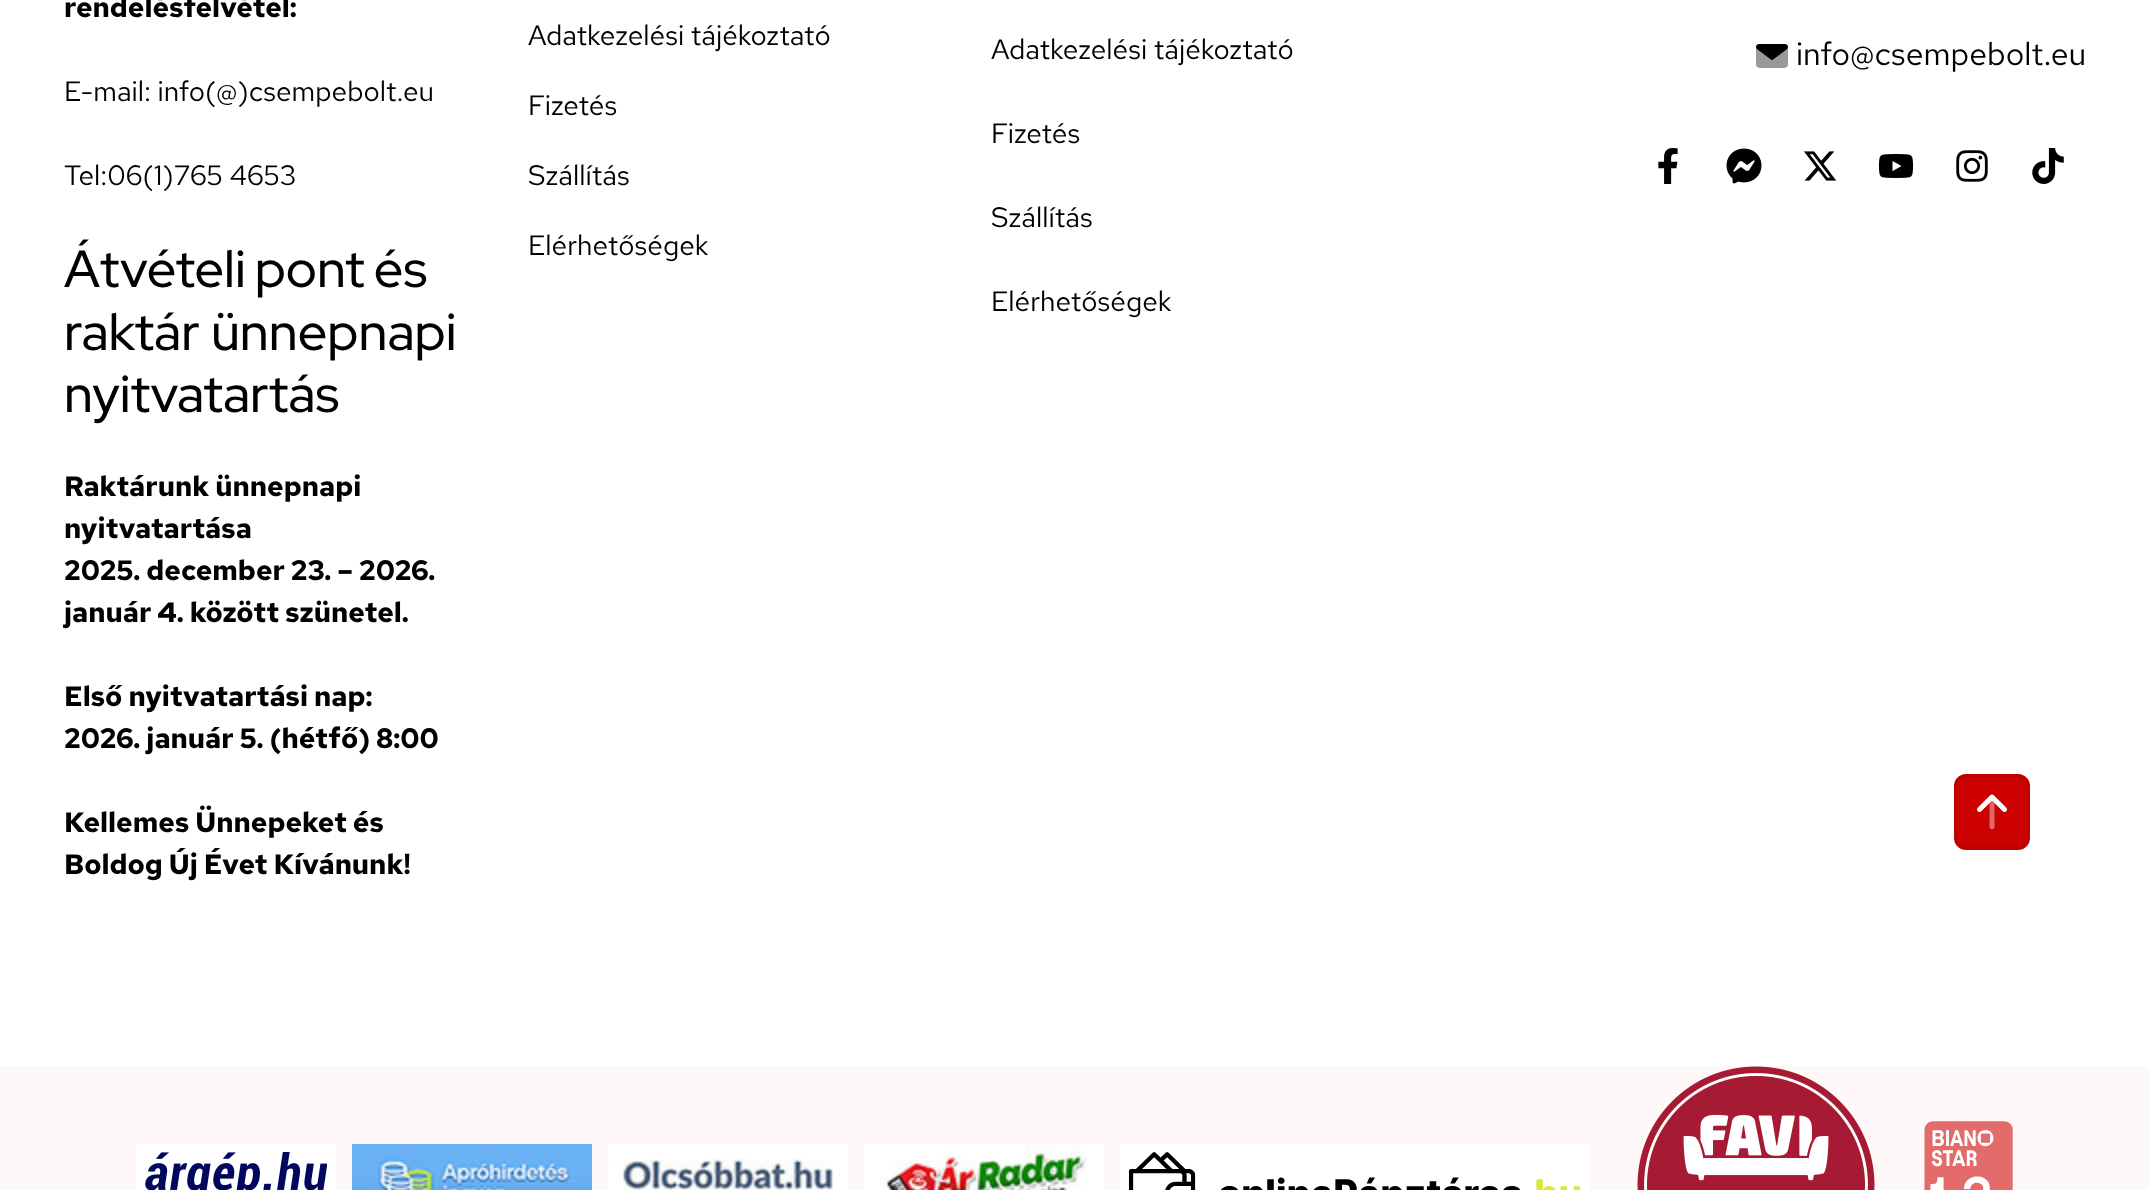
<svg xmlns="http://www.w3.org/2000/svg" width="2149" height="1190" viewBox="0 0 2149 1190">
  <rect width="100%" height="100%" fill="#fff"/>
  <image x="1756" y="44" width="32" height="24" href="img/1.png"/>
  <image x="1658" y="148" width="20" height="36" href="img/2.png"/>
  <image x="1726" y="148" width="36" height="36" href="img/3.png"/>
  <image x="1804" y="151" width="33" height="30" href="img/4.png"/>
  <image x="1878" y="154" width="36" height="24" href="img/5.png"/>
  <image x="1956" y="150" width="32" height="32" href="img/6.png"/>
  <image x="2032" y="148" width="32" height="36" href="img/7.png"/>
  <rect x="1956" y="776" width="72" height="72" rx="10" fill="#c00" stroke="#bf0000" stroke-width="4"/>
  <image x="1977" y="794" width="30" height="36" href="img/8.png"/>
  <path d="M0 1066h2149v124H0z" fill="#fff8f8"/>
  <path d="M136 1144h200v46H136z" fill="#fff"/>
  <image x="145" y="1152" width="182" height="38" href="img/9.png"/>
  <image x="352" y="1144" width="240" height="46" href="img/10.png"/>
  <image x="608" y="1144" width="240" height="46" href="img/11.png"/>
  <image x="864" y="1144" width="240" height="46" href="img/12.png"/>
  <path d="M1120 1144h470v46H1120z" fill="#fff"/>
  <image x="1128" y="1152" width="453" height="38" href="img/13.png"/>
  <image x="1637" y="1066" width="238" height="124" href="img/14.png"/>
  <image x="1924" y="1121" width="89" height="69" href="img/15.png"/>
  <text x="64" y="17" font-family="Red Hat Text" font-size="28" font-weight="bold" fill="#000">rendelésfelvétel:</text>
  <g font-family="Red Hat Text" font-size="28" fill="#000">
    <text x="64" y="101">E-mail: info(@)csempebolt.eu</text>
    <text x="64" y="185">Tel:06(1)765 4653</text>
  </g>
  <g font-family="Red Hat Display" font-size="52" font-weight="500" fill="#000">
    <text x="64" y="287" word-spacing="-2">Átvételi pont és</text>
    <text x="64" y="350">raktár ünnepnapi</text>
    <text x="64" y="412">nyitvatartás</text>
  </g>
  <g font-family="Red Hat Text" font-size="28" font-weight="bold" fill="#000">
    <text x="64" y="496">Raktárunk ünnepnapi</text>
    <text x="64" y="538">nyitvatartása</text>
    <text x="64" y="580">2025. december 23. – 2026.</text>
    <text x="64" y="622">január 4. között szünetel.</text>
    <text x="64" y="706">Első nyitvatartási nap:</text>
    <text x="64" y="748">2026. január 5. (hétfő) 8:00</text>
    <text x="64" y="832">Kellemes Ünnepeket és</text>
    <text x="64" y="874">Boldog Új Évet Kívánunk!</text>
  </g>
  <g font-family="Red Hat Text" font-size="28" fill="#000">
    <text x="528" y="45">Adatkezelési tájékoztató</text>
    <text x="528" y="115">Fizetés</text>
    <text x="528" y="185">Szállítás</text>
    <text x="528" y="255">Elérhetőségek</text>
    <text x="991" y="59">Adatkezelési tájékoztató</text>
    <text x="991" y="143">Fizetés</text>
    <text x="991" y="227">Szállítás</text>
    <text x="991" y="311">Elérhetőségek</text>
  </g>
  <text x="1796" y="65" font-family="Red Hat Text" font-size="32" fill="#000">info@csempebolt.eu</text>
</svg>
